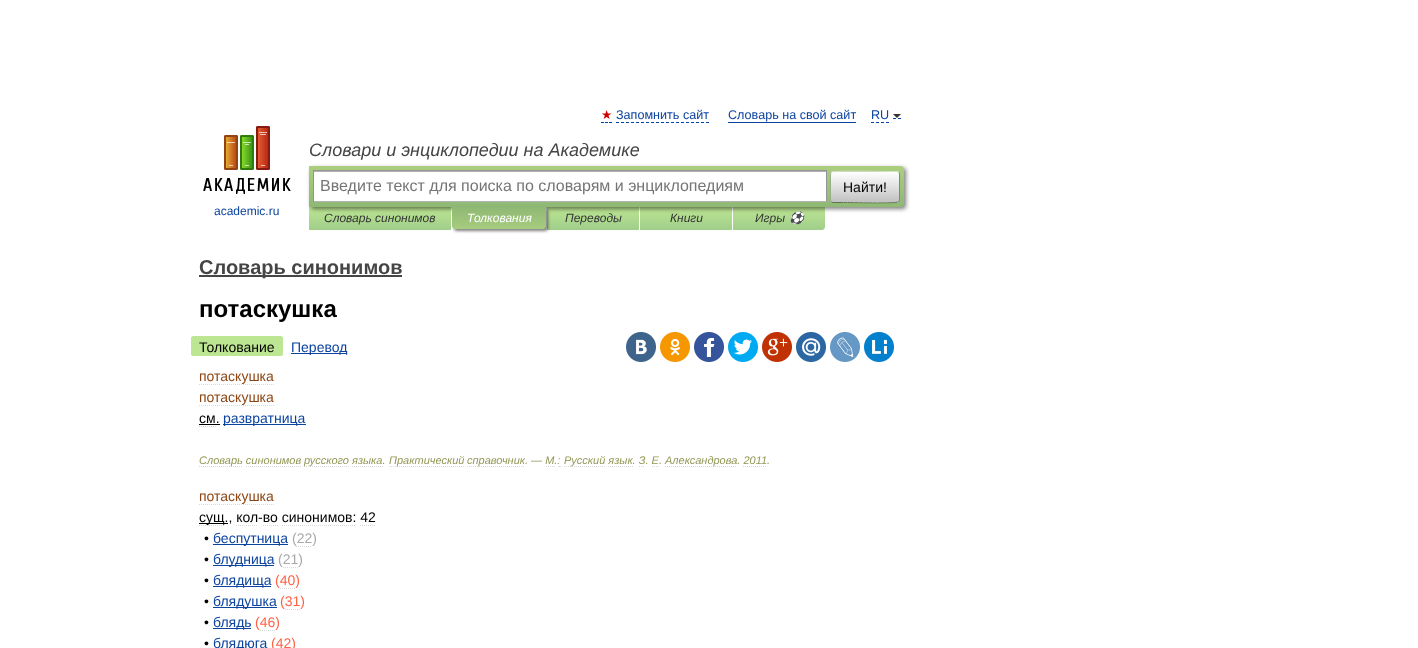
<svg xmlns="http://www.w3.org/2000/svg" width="1418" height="648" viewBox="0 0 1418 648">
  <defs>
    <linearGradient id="g1" gradientUnits="userSpaceOnUse" x1="380" y1="207" x2="380" y2="230"><stop offset="0" stop-color="#bde693"/><stop offset="1" stop-color="#a0ce8a"/></linearGradient>
    <linearGradient id="g2" gradientUnits="userSpaceOnUse" x1="593" y1="207" x2="593" y2="230"><stop offset="0" stop-color="#bde693"/><stop offset="1" stop-color="#a0ce8a"/></linearGradient>
    <linearGradient id="g3" gradientUnits="userSpaceOnUse" x1="686" y1="207" x2="686" y2="230"><stop offset="0" stop-color="#bde693"/><stop offset="1" stop-color="#a0ce8a"/></linearGradient>
    <linearGradient id="g4" gradientUnits="userSpaceOnUse" x1="779" y1="207" x2="779" y2="230"><stop offset="0" stop-color="#bde693"/><stop offset="1" stop-color="#a0ce8a"/></linearGradient>
    <linearGradient id="g5" gradientUnits="userSpaceOnUse" x1="607" y1="166" x2="607" y2="207"><stop offset="0" stop-color="#abcf7e"/><stop offset="1" stop-color="#8eb874"/></linearGradient>
    <clipPath id="clip1"><rect x="830" y="171" width="70" height="32" rx="3"/></clipPath>
    <linearGradient id="g6" gradientUnits="userSpaceOnUse" x1="865" y1="142" x2="865" y2="172"><stop offset="0" stop-color="#fff"/><stop offset="1" stop-color="#c1c1c1"/></linearGradient>
    <linearGradient id="g7" gradientUnits="userSpaceOnUse" x1="865" y1="172" x2="865" y2="202"><stop offset="0" stop-color="#fff"/><stop offset="1" stop-color="#c1c1c1"/></linearGradient>
    <linearGradient id="g8" gradientUnits="userSpaceOnUse" x1="865" y1="202" x2="865" y2="232"><stop offset="0" stop-color="#fff"/><stop offset="1" stop-color="#c1c1c1"/></linearGradient>
    <linearGradient id="g9" gradientUnits="userSpaceOnUse" x1="499" y1="207" x2="499" y2="229"><stop offset="0" stop-color="#8fb875"/><stop offset="1" stop-color="#a7cc7d"/></linearGradient>
  </defs>
  <rect width="100%" height="100%" fill="#fff"/>
  <path d="M601 122.5H604M605 122.5H608M609 122.5H612" fill="none" stroke="#04a"/>
  <path d="M616 122.5H709" fill="none" stroke="#04a" stroke-dasharray="3 2"/>
  <path d="M728 122h128v1H728z" fill="#0d44a0"/>
  <path d="M871 122.5H889" fill="none" stroke="#04a" stroke-dasharray="3 2"/>
  <path d="M893 118.5H896M898 118.5H901" fill="none" stroke="#04a"/>
  <path d="M893 114H901L897 118Z" fill="#333"/>
  <path d="M309 207h142v23H309z" fill="url(#g1)"/>
  <path d="M547 207h92v23H547z" fill="url(#g2)"/>
  <path d="M640 207h92v23H640z" fill="url(#g3)"/>
  <path d="M733 207H825V227C825 228.5 823.5 230 822 230H733Z" fill="url(#g4)"/>
  <rect x="311" y="168" width="595" height="41" rx="3" fill="#00000080" filter="blur(2px)"/>
  <path d="M309 166H901C902.5 166 904 167.5 904 169V204C904 205.5 902.5 207 901 207H309Z" fill="url(#g5)"/>
  <path d="M314 172h512v29H314z" fill="#fff"/>
  <path d="M314 171h512v1H314z" fill="#b3b3b3"/>
  <path d="M313 170h514v1H313z" fill="#949494"/>
  <path d="M826 170h1v32H826z" fill="#949494"/>
  <path d="M313 201h514v1H313z" fill="#b4b4b4"/>
  <path d="M313 170h1v32H313z" fill="#949494"/>
  <g clip-path="url(#clip1)">
    <path d="M830 171h70v1H830z" fill="url(#g6)"/>
    <path d="M830 172h70v30H830z" fill="url(#g7)"/>
    <path d="M830 202h70v1H830z" fill="url(#g8)"/>
  </g>
  <path d="M831 172H831.5C833.5 170.5 880 171.5 886.5 171.5H897L899 172" fill="none" stroke="#d1e4bc"/>
  <path d="M899 172C899 172.5 899.5 173.5 899.5 174V200C899.5 200.5 899 201.5 899 202" fill="none" stroke="#7a8e69"/>
  <path d="M899 202H898.5C896.5 203.5 850 202.5 843.5 202.5H833L831 202" fill="none" stroke="#5d7250"/>
  <path d="M831 202C831 201.5 830.5 200.5 830.5 200V174C830.5 173.5 831 172.5 831 172" fill="none" stroke="#9aae89"/>
  <image x="203" y="126" width="88" height="68" href="img/1.png"/>
  <rect x="454" y="209" width="94" height="22" rx="3" fill="#00000080" filter="blur(1.5px)"/>
  <path d="M452 207H546V226C546 227.5 544.5 229 543 229H455C453.5 229 452 227.5 452 226Z" fill="url(#g9)"/>
  <path d="M199 275h203v2H199z" fill="#454545"/>
  <path d="M193 336H199V356H193C192 356 191 355 191 354V338C191 337 192 336 193 336Z" fill="#bde693"/>
  <path d="M199 336H281C282 336 283 337 283 338V354C283 355 282 356 281 356H199Z" fill="#bde693"/>
  <path d="M291 353h56v1H291z" fill="#0d44a0"/>
  <image x="626" y="332" width="30" height="30" href="img/2.png"/>
  <image x="660" y="332" width="30" height="30" href="img/3.png"/>
  <image x="694" y="332" width="30" height="30" href="img/4.png"/>
  <image x="728" y="332" width="30" height="30" href="img/5.png"/>
  <image x="762" y="332" width="30" height="30" href="img/6.png"/>
  <image x="796" y="332" width="30" height="30" href="img/7.png"/>
  <image x="830" y="332" width="30" height="30" href="img/8.png"/>
  <image x="864" y="332" width="30" height="30" href="img/9.png"/>
  <path d="M199 384.5H274" fill="none" stroke="#d9d9d9" stroke-dasharray="1 1"/>
  <path d="M199 405.5H274" fill="none" stroke="#d9d9d9" stroke-dasharray="1 1"/>
  <path d="M199 426.5H216" fill="none" stroke="#d9d9d9" stroke-dasharray="1 1"/>
  <path d="M199 424h21v1H199z" fill="#000"/>
  <path d="M223 424h83v1H223z" fill="#0d44a0"/>
  <path d="M199 466.5H243" fill="none" stroke="#d9d9d9" stroke-dasharray="1 1"/>
  <path d="M304 466.5H349" fill="none" stroke="#d9d9d9" stroke-dasharray="1 1"/>
  <path d="M389 466.5H464" fill="none" stroke="#d9d9d9" stroke-dasharray="1 1"/>
  <path d="M467 466.5H525" fill="none" stroke="#d9d9d9" stroke-dasharray="1 1"/>
  <path d="M564 466.5H605" fill="none" stroke="#d9d9d9" stroke-dasharray="1 1"/>
  <path d="M665 466.5H737" fill="none" stroke="#d9d9d9" stroke-dasharray="1 1"/>
  <path d="M199 504.5H274" fill="none" stroke="#d9d9d9" stroke-dasharray="1 1"/>
  <path d="M199 525.5H225" fill="none" stroke="#d9d9d9" stroke-dasharray="1 1"/>
  <path d="M199 523h29v1H199z" fill="#000"/>
  <path d="M236 525.5H258M263 525.5H278" fill="none" stroke="#d9d9d9" stroke-dasharray="1 1"/>
  <path d="M282 525.5H356" fill="none" stroke="#d9d9d9" stroke-dasharray="1 1"/>
  <path d="M360 525.5H376" fill="none" stroke="#d9d9d9" stroke-dasharray="1 1"/>
  <path d="M213 544h75v1H213z" fill="#0d44a0"/>
  <path d="M296 546.5H312" fill="none" stroke="#d9d9d9" stroke-dasharray="1 1"/>
  <path d="M213 565h61v1H213z" fill="#0d44a0"/>
  <path d="M283 567.5H299" fill="none" stroke="#d9d9d9" stroke-dasharray="1 1"/>
  <path d="M213 586h58v1H213z" fill="#0d44a0"/>
  <path d="M280 588.5H295" fill="none" stroke="#d9d9d9" stroke-dasharray="1 1"/>
  <path d="M213 607h64v1H213z" fill="#0d44a0"/>
  <path d="M285 609.5H301" fill="none" stroke="#d9d9d9" stroke-dasharray="1 1"/>
  <path d="M213 628h38v1H213z" fill="#0d44a0"/>
  <path d="M260 630.5H276" fill="none" stroke="#d9d9d9" stroke-dasharray="1 1"/>
  <text x="601" y="119" font-family="DejaVu Sans" font-size="12.6" fill="#c00">★</text>
  <g font-family="Liberation Sans" font-size="12.6" fill="#0d44a0">
    <text x="616" y="119">Запомнить сайт</text>
    <text x="728" y="119">Словарь на свой сайт</text>
    <text x="871" y="119">RU</text>
  </g>
  <text x="309" y="156" font-family="Liberation Sans" font-size="18" font-style="italic" fill="#454545">Словари и энциклопедии на Академике</text>
  <text x="320" y="191" font-family="Liberation Sans" font-size="16" fill="#757575">Введите текст для поиска по словарям и энциклопедиям</text>
  <text x="843" y="192" font-family="Liberation Sans" font-size="14" fill="#000">Найти!</text>
  <text x="214" y="215" font-family="Liberation Sans" font-size="12" fill="#0d44a0">academic.ru</text>
  <text x="324" y="222" font-family="Liberation Sans" font-size="12" font-style="italic" fill="#353535">Словарь синонимов</text>
  <text x="467" y="222" font-family="Liberation Sans" font-size="12" font-style="italic" fill="#fff">Толкования</text>
  <g font-family="Liberation Sans" font-size="12" font-style="italic" fill="#353535">
    <text x="565" y="222">Переводы</text>
    <text x="670" y="222">Книги</text>
    <text x="755" y="222">Игры</text>
  </g>
  <text x="789" y="222" font-family="Noto Color Emoji" font-size="12" font-style="italic" fill="#353535">⚽</text>
  <text x="199" y="274" font-family="Liberation Sans" font-size="20" font-weight="bold" fill="#454545">Словарь синонимов</text>
  <text x="199" y="317" font-family="Liberation Sans" font-size="24" font-weight="bold" fill="#000">потаскушка</text>
  <text x="199" y="352" font-family="Liberation Sans" font-size="14" fill="#000">Толкование</text>
  <text x="291" y="352" font-family="Liberation Sans" font-size="14" fill="#0d44a0">Перевод</text>
  <g font-family="Liberation Sans" font-size="14" fill="#8b4513">
    <text x="199" y="381">потаскушка</text>
    <text x="199" y="402">потаскушка</text>
  </g>
  <text x="199" y="423" font-family="Liberation Sans" font-size="14" fill="#000">см.</text>
  <text x="223" y="423" font-family="Liberation Sans" font-size="14" fill="#0d44a0">развратница</text>
  <text x="199" y="464" font-family="Liberation Sans" font-size="11" font-style="italic" fill="#939756">Словарь синонимов</text>
  <path d="M246 466.5H301" fill="none" stroke="#d9d9d9" stroke-dasharray="1 1"/>
  <text x="304" y="464" font-family="Liberation Sans" font-size="11" font-style="italic" fill="#939756">русского языка.</text>
  <path d="M352 466.5H383" fill="none" stroke="#d9d9d9" stroke-dasharray="1 1"/>
  <g font-family="Liberation Sans" font-size="11" font-style="italic" fill="#939756">
    <text x="389" y="464">Практический</text>
    <text x="467" y="464">справочник. — М.:</text>
  </g>
  <path d="M546 466.5H555" fill="none" stroke="#d9d9d9" stroke-dasharray="1 1"/>
  <path d="M558 466h3v1H558z" fill="#d9d9d9"/>
  <text x="564" y="464" font-family="Liberation Sans" font-size="11" font-style="italic" fill="#939756">Русский язык. З. Е.</text>
  <path d="M608 466.5H633" fill="none" stroke="#d9d9d9" stroke-dasharray="1 1"/>
  <path d="M639 466.5H640M641 466.5H642M643 466.5H644M652 466.5H653M654 466.5H655M656 466.5H657M658 466.5H659" fill="none" stroke="#d9d9d9"/>
  <text x="665" y="464" font-family="Liberation Sans" font-size="11" font-style="italic" fill="#939756">Александрова. 2011.</text>
  <path d="M743 466.5H767" fill="none" stroke="#d9d9d9" stroke-dasharray="1 1"/>
  <text x="199" y="501" font-family="Liberation Sans" font-size="14" fill="#8b4513">потаскушка</text>
  <g font-family="Liberation Sans" font-size="14" fill="#000">
    <text x="199" y="522">сущ., кол-во синонимов: 42</text>
    <text x="204" y="543">•</text>
  </g>
  <text x="213" y="543" font-family="Liberation Sans" font-size="14" fill="#0d44a0">беспутница</text>
  <text x="292" y="543" font-family="Liberation Sans" font-size="14" fill="#a9a9a9">(22)</text>
  <text x="204" y="564" font-family="Liberation Sans" font-size="14" fill="#000">•</text>
  <text x="213" y="564" font-family="Liberation Sans" font-size="14" fill="#0d44a0">блудница</text>
  <text x="278" y="564" font-family="Liberation Sans" font-size="14" fill="#a9a9a9">(21)</text>
  <text x="204" y="585" font-family="Liberation Sans" font-size="14" fill="#000">•</text>
  <text x="213" y="585" font-family="Liberation Sans" font-size="14" fill="#0d44a0">блядища</text>
  <text x="275" y="585" font-family="Liberation Sans" font-size="14" fill="#ff6347">(40)</text>
  <text x="204" y="606" font-family="Liberation Sans" font-size="14" fill="#000">•</text>
  <text x="213" y="606" font-family="Liberation Sans" font-size="14" fill="#0d44a0">блядушка</text>
  <text x="280" y="606" font-family="Liberation Sans" font-size="14" fill="#ff6347">(31)</text>
  <text x="204" y="627" font-family="Liberation Sans" font-size="14" fill="#000">•</text>
  <text x="213" y="627" font-family="Liberation Sans" font-size="14" fill="#0d44a0">блядь</text>
  <text x="255" y="627" font-family="Liberation Sans" font-size="14" fill="#ff6347">(46)</text>
  <text x="204" y="648" font-family="Liberation Sans" font-size="14" fill="#000">•</text>
  <text x="213" y="648" font-family="Liberation Sans" font-size="14" fill="#0d44a0">блядюга</text>
  <text x="271" y="648" font-family="Liberation Sans" font-size="14" fill="#ff6347">(42)</text>
</svg>
